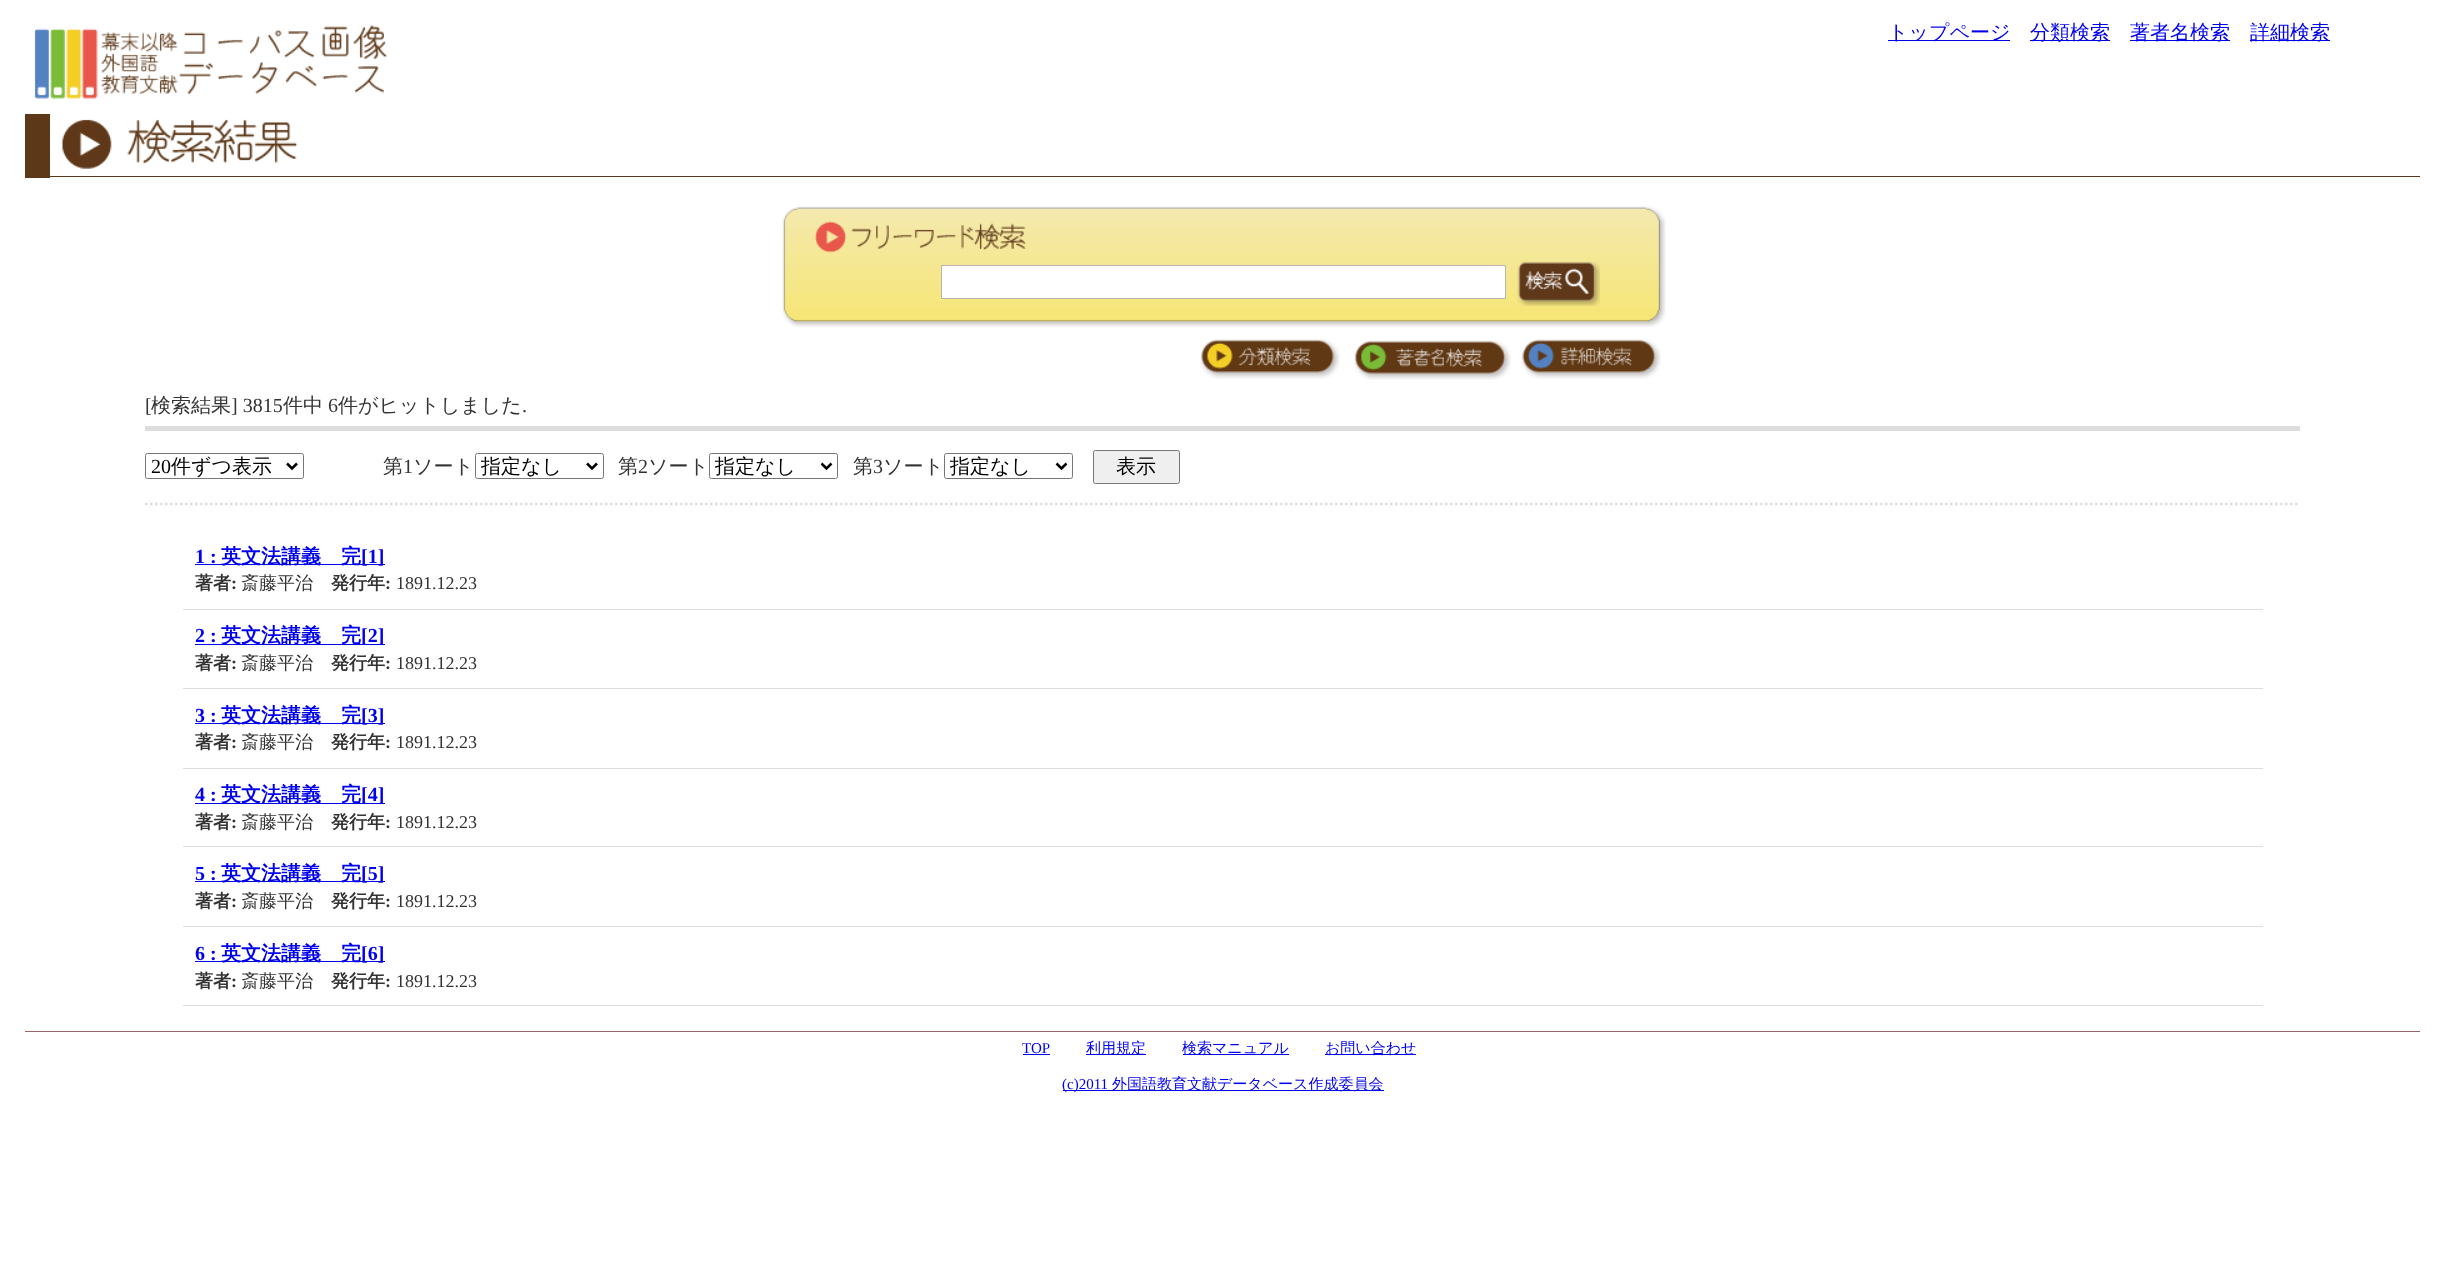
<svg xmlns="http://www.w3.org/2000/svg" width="2445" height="1261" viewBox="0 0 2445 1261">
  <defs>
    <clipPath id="clip1"><path d="M481 454h102v24H481z"/></clipPath>
  </defs>
  <rect width="100%" height="100%" fill="#fff"/>
  <image x="34" y="25" width="353" height="74" href="img/1.png"/>
  <path d="M1888 40h122v1H1888z" fill="#00e"/>
  <path d="M2030 40h80v1H2030z" fill="#00e"/>
  <path d="M2130 40h100v1H2130z" fill="#00e"/>
  <path d="M2250 40h80v1H2250z" fill="#00e"/>
  <image x="62" y="119" width="235" height="50" href="img/2.png"/>
  <path d="M50 176h2370v1H50z" fill="#5c3818"/>
  <path d="M25 114h25v64H25z" fill="#5c3818"/>
  <image x="782" y="206" width="884" height="121" href="img/3.png"/>
  <path d="M941.5 265.5h564v33H941.5z" fill="#fff" stroke="#b9b4b0"/>
  <image x="1517" y="261" width="83" height="45" href="img/4.png"/>
  <image x="1200" y="339" width="140" height="40" href="img/5.png"/>
  <image x="1354" y="340" width="157" height="40" href="img/6.png"/>
  <image x="1521" y="339" width="140" height="40" href="img/7.png"/>
  <path d="M145 426h2155v5H145z" fill="#ddd"/>
  <path d="M145 504H2300" fill="none" stroke="#ddd" stroke-width="2.5" stroke-dasharray="2.5 2.5"/>
  <rect x="145.5" y="453.5" width="158" height="25" rx="2" fill="none" stroke="#767676"/>
  <path d="M287 463.5L292 468.5L297 463.5" fill="none" stroke="#000" stroke-width="2.5"/>
  <rect x="475.5" y="453.5" width="128" height="25" rx="2" fill="none" stroke="#767676"/>
  <path d="M587 463.5L592 468.5L597 463.5" fill="none" stroke="#000" stroke-width="2.5"/>
  <rect x="709.5" y="453.5" width="128" height="25" rx="2" fill="none" stroke="#767676"/>
  <path d="M821.5 463.5L826.5 468.5L831.5 463.5" fill="none" stroke="#000" stroke-width="2.5"/>
  <rect x="944.5" y="453.5" width="128" height="25" rx="2" fill="none" stroke="#767676"/>
  <path d="M1056.5 463.5L1061.5 468.5L1066.5 463.5" fill="none" stroke="#000" stroke-width="2.5"/>
  <rect x="1093.5" y="450.5" width="86" height="33" rx="2" fill="#efefef" stroke="#767676"/>
  <path d="M195 564h190v1H195z" fill="#00e"/>
  <path d="M183 609h2080v1H183z" fill="#ddd"/>
  <path d="M195 644h190v1H195z" fill="#00e"/>
  <path d="M183 688h2080v1H183z" fill="#ddd"/>
  <path d="M195 723h190v1H195z" fill="#00e"/>
  <path d="M183 768h2080v1H183z" fill="#ddd"/>
  <path d="M195 803h190v1H195z" fill="#00e"/>
  <path d="M183 846h2080v1H183z" fill="#ddd"/>
  <path d="M195 881h190v1H195z" fill="#00e"/>
  <path d="M183 926h2080v1H183z" fill="#ddd"/>
  <path d="M195 961h190v1H195z" fill="#00e"/>
  <path d="M183 1005h2080v1H183z" fill="#ddd"/>
  <path d="M25 1031h2395v1H25z" fill="#966"/>
  <path d="M1023 1054h27v1H1023z" fill="#00e"/>
  <path d="M1086 1054h60v1H1086z" fill="#00e"/>
  <path d="M1183 1054h106v1H1183z" fill="#00e"/>
  <path d="M1325 1054h91v1H1325z" fill="#00e"/>
  <path d="M1063 1090h321v1H1063z" fill="#00e"/>
  <g font-family="WenQuanYi Zen Hei" font-size="20" font-weight="500" fill="#00e">
    <text x="1888" y="39">トップページ</text>
    <text x="2030" y="39">分類検索</text>
    <text x="2130" y="39">著者名検索</text>
    <text x="2250" y="39">詳細検索</text>
  </g>
  <text x="145" y="412" font-family="Liberation Serif" font-size="20" fill="#333">[</text>
  <text x="151" y="412" font-family="WenQuanYi Zen Hei" font-size="20" font-weight="500" fill="#333">検索結果</text>
  <text x="231" y="412" font-family="Liberation Serif" font-size="20" fill="#333">] 3815</text>
  <text x="283" y="412" font-family="WenQuanYi Zen Hei" font-size="20" font-weight="500" fill="#333">件中</text>
  <text x="328" y="412" font-family="Liberation Serif" font-size="20" fill="#333">6</text>
  <text x="338" y="412" font-family="WenQuanYi Zen Hei" font-size="20" font-weight="500" fill="#333">件がヒットしました</text>
  <text x="522" y="412" font-family="Liberation Serif" font-size="20" fill="#333">.</text>
  <text x="151" y="473" font-family="Liberation Serif" font-size="20" fill="#000">20</text>
  <text x="171" y="473" font-family="WenQuanYi Zen Hei" font-size="20" font-weight="500" fill="#000">件ずつ表示</text>
  <text x="383" y="473" font-family="WenQuanYi Zen Hei" font-size="20" font-weight="500" fill="#333">第</text>
  <text x="403" y="473" font-family="Liberation Serif" font-size="20" fill="#333">1</text>
  <text x="413" y="473" font-family="WenQuanYi Zen Hei" font-size="20" font-weight="500" fill="#333">ソート</text>
  <g clip-path="url(#clip1)">
    <text x="481" y="473" font-family="WenQuanYi Zen Hei" font-size="20" font-weight="500" fill="#000">指定なし</text>
  </g>
  <text x="618" y="473" font-family="WenQuanYi Zen Hei" font-size="20" font-weight="500" fill="#333">第</text>
  <text x="638" y="473" font-family="Liberation Serif" font-size="20" fill="#333">2</text>
  <text x="648" y="473" font-family="WenQuanYi Zen Hei" font-size="20" font-weight="500" fill="#333">ソート</text>
  <text x="715" y="473" font-family="WenQuanYi Zen Hei" font-size="20" font-weight="500" fill="#000">指定なし</text>
  <text x="853" y="473" font-family="WenQuanYi Zen Hei" font-size="20" font-weight="500" fill="#333">第</text>
  <text x="873" y="473" font-family="Liberation Serif" font-size="20" fill="#333">3</text>
  <text x="883" y="473" font-family="WenQuanYi Zen Hei" font-size="20" font-weight="500" fill="#333">ソート</text>
  <g font-family="WenQuanYi Zen Hei" font-size="20" font-weight="500" fill="#000">
    <text x="950" y="473">指定なし</text>
    <text x="1116" y="473">表示</text>
  </g>
  <text x="195" y="563" font-family="Liberation Serif" font-size="20" font-weight="bold" fill="#00e">1 :</text>
  <text x="221" y="563" font-family="WenQuanYi Zen Hei" font-size="20" font-weight="bold" fill="#00e">英文法講義　完</text>
  <text x="361" y="563" font-family="Liberation Serif" font-size="20" font-weight="bold" fill="#00e">[1]</text>
  <text x="195" y="589" font-family="WenQuanYi Zen Hei" font-size="18" font-weight="bold" fill="#333">著者</text>
  <text x="231" y="589" font-family="Liberation Serif" font-size="18" font-weight="bold" fill="#333">:</text>
  <text x="241" y="589" font-family="WenQuanYi Zen Hei" font-size="18" font-weight="500" fill="#333">斎藤平治</text>
  <text x="331" y="589" font-family="WenQuanYi Zen Hei" font-size="18" font-weight="bold" fill="#333">発行年</text>
  <text x="385" y="589" font-family="Liberation Serif" font-size="18" font-weight="bold" fill="#333">:</text>
  <text x="396" y="589" font-family="Liberation Serif" font-size="18" fill="#333">1891.12.23</text>
  <text x="195" y="642" font-family="Liberation Serif" font-size="20" font-weight="bold" fill="#00e">2 :</text>
  <text x="221" y="642" font-family="WenQuanYi Zen Hei" font-size="20" font-weight="bold" fill="#00e">英文法講義　完</text>
  <text x="361" y="642" font-family="Liberation Serif" font-size="20" font-weight="bold" fill="#00e">[2]</text>
  <text x="195" y="669" font-family="WenQuanYi Zen Hei" font-size="18" font-weight="bold" fill="#333">著者</text>
  <text x="231" y="669" font-family="Liberation Serif" font-size="18" font-weight="bold" fill="#333">:</text>
  <text x="241" y="669" font-family="WenQuanYi Zen Hei" font-size="18" font-weight="500" fill="#333">斎藤平治</text>
  <text x="331" y="669" font-family="WenQuanYi Zen Hei" font-size="18" font-weight="bold" fill="#333">発行年</text>
  <text x="385" y="669" font-family="Liberation Serif" font-size="18" font-weight="bold" fill="#333">:</text>
  <text x="396" y="669" font-family="Liberation Serif" font-size="18" fill="#333">1891.12.23</text>
  <text x="195" y="722" font-family="Liberation Serif" font-size="20" font-weight="bold" fill="#00e">3 :</text>
  <text x="221" y="722" font-family="WenQuanYi Zen Hei" font-size="20" font-weight="bold" fill="#00e">英文法講義　完</text>
  <text x="361" y="722" font-family="Liberation Serif" font-size="20" font-weight="bold" fill="#00e">[3]</text>
  <text x="195" y="748" font-family="WenQuanYi Zen Hei" font-size="18" font-weight="bold" fill="#333">著者</text>
  <text x="231" y="748" font-family="Liberation Serif" font-size="18" font-weight="bold" fill="#333">:</text>
  <text x="241" y="748" font-family="WenQuanYi Zen Hei" font-size="18" font-weight="500" fill="#333">斎藤平治</text>
  <text x="331" y="748" font-family="WenQuanYi Zen Hei" font-size="18" font-weight="bold" fill="#333">発行年</text>
  <text x="385" y="748" font-family="Liberation Serif" font-size="18" font-weight="bold" fill="#333">:</text>
  <text x="396" y="748" font-family="Liberation Serif" font-size="18" fill="#333">1891.12.23</text>
  <text x="195" y="801" font-family="Liberation Serif" font-size="20" font-weight="bold" fill="#00e">4 :</text>
  <text x="221" y="801" font-family="WenQuanYi Zen Hei" font-size="20" font-weight="bold" fill="#00e">英文法講義　完</text>
  <text x="361" y="801" font-family="Liberation Serif" font-size="20" font-weight="bold" fill="#00e">[4]</text>
  <text x="195" y="828" font-family="WenQuanYi Zen Hei" font-size="18" font-weight="bold" fill="#333">著者</text>
  <text x="231" y="828" font-family="Liberation Serif" font-size="18" font-weight="bold" fill="#333">:</text>
  <text x="241" y="828" font-family="WenQuanYi Zen Hei" font-size="18" font-weight="500" fill="#333">斎藤平治</text>
  <text x="331" y="828" font-family="WenQuanYi Zen Hei" font-size="18" font-weight="bold" fill="#333">発行年</text>
  <text x="385" y="828" font-family="Liberation Serif" font-size="18" font-weight="bold" fill="#333">:</text>
  <text x="396" y="828" font-family="Liberation Serif" font-size="18" fill="#333">1891.12.23</text>
  <text x="195" y="880" font-family="Liberation Serif" font-size="20" font-weight="bold" fill="#00e">5 :</text>
  <text x="221" y="880" font-family="WenQuanYi Zen Hei" font-size="20" font-weight="bold" fill="#00e">英文法講義　完</text>
  <text x="361" y="880" font-family="Liberation Serif" font-size="20" font-weight="bold" fill="#00e">[5]</text>
  <text x="195" y="907" font-family="WenQuanYi Zen Hei" font-size="18" font-weight="bold" fill="#333">著者</text>
  <text x="231" y="907" font-family="Liberation Serif" font-size="18" font-weight="bold" fill="#333">:</text>
  <text x="241" y="907" font-family="WenQuanYi Zen Hei" font-size="18" font-weight="500" fill="#333">斎藤平治</text>
  <text x="331" y="907" font-family="WenQuanYi Zen Hei" font-size="18" font-weight="bold" fill="#333">発行年</text>
  <text x="385" y="907" font-family="Liberation Serif" font-size="18" font-weight="bold" fill="#333">:</text>
  <text x="396" y="907" font-family="Liberation Serif" font-size="18" fill="#333">1891.12.23</text>
  <text x="195" y="960" font-family="Liberation Serif" font-size="20" font-weight="bold" fill="#00e">6 :</text>
  <text x="221" y="960" font-family="WenQuanYi Zen Hei" font-size="20" font-weight="bold" fill="#00e">英文法講義　完</text>
  <text x="361" y="960" font-family="Liberation Serif" font-size="20" font-weight="bold" fill="#00e">[6]</text>
  <text x="195" y="987" font-family="WenQuanYi Zen Hei" font-size="18" font-weight="bold" fill="#333">著者</text>
  <text x="231" y="987" font-family="Liberation Serif" font-size="18" font-weight="bold" fill="#333">:</text>
  <text x="241" y="987" font-family="WenQuanYi Zen Hei" font-size="18" font-weight="500" fill="#333">斎藤平治</text>
  <text x="331" y="987" font-family="WenQuanYi Zen Hei" font-size="18" font-weight="bold" fill="#333">発行年</text>
  <text x="385" y="987" font-family="Liberation Serif" font-size="18" font-weight="bold" fill="#333">:</text>
  <text x="396" y="987" font-family="Liberation Serif" font-size="18" fill="#333">1891.12.23</text>
  <text x="1022" y="1053" font-family="Liberation Serif" font-size="15" fill="#00e">TOP</text>
  <g font-family="WenQuanYi Zen Hei" font-size="15" font-weight="500" fill="#00e">
    <text x="1086" y="1053">利用規定</text>
    <text x="1182" y="1053">検索マニュアル</text>
    <text x="1325" y="1053">お問い合わせ</text>
  </g>
  <text x="1062" y="1089" font-family="Liberation Serif" font-size="15" fill="#00e">(c)2011</text>
  <text x="1112" y="1089" font-family="WenQuanYi Zen Hei" font-size="15" font-weight="500" fill="#00e">外国語教育文献データベース作成委員会</text>
</svg>
